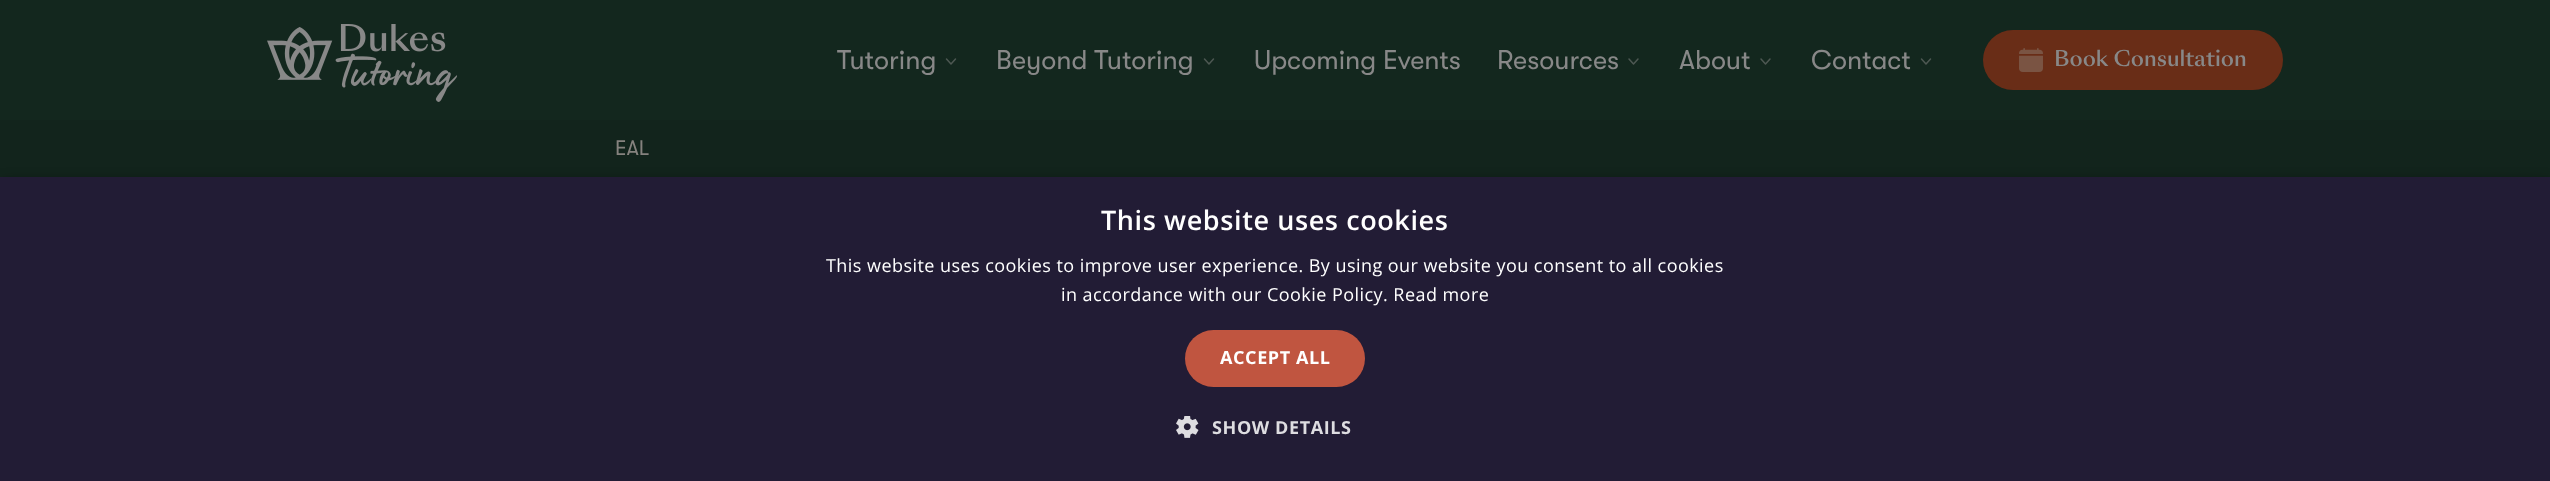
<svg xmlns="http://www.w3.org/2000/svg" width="2550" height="481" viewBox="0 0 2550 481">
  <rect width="100%" height="100%" fill="#12241c"/>
  <path d="M0 0h2550v120H0z" fill="#13271e"/>
  <image x="267" y="24" width="191" height="78" href="img/1.png"/>
  <path d="M946.5 59L951 64L955.5 59" fill="none" stroke="#4e5853" stroke-width="1.5" stroke-linecap="round" stroke-linejoin="round"/>
  <path d="M1204.5 59L1209 64L1213.5 59" fill="none" stroke="#4e5853" stroke-width="1.5" stroke-linecap="round" stroke-linejoin="round"/>
  <path d="M1629 59L1633.5 64L1638 59" fill="none" stroke="#4e5853" stroke-width="1.5" stroke-linecap="round" stroke-linejoin="round"/>
  <path d="M1761 59L1765.5 64L1770 59" fill="none" stroke="#4e5853" stroke-width="1.5" stroke-linecap="round" stroke-linejoin="round"/>
  <path d="M1921.5 59L1926 64L1930.5 59" fill="none" stroke="#4e5853" stroke-width="1.5" stroke-linecap="round" stroke-linejoin="round"/>
  <rect x="1983" y="30" width="300" height="60" rx="30" fill="#692d17"/>
  <image x="2019" y="48" width="24" height="24" href="img/2.png"/>
  <path d="M2 180h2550v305H2z" fill="#00000059" filter="blur(6px)"/>
  <path d="M0 177h2550v304H0z" fill="#221c35"/>
  <rect x="1185" y="330" width="180" height="57" rx="28.5" fill="#c05540"/>
  <image x="1176" y="416" width="23" height="22" href="img/3.png"/>
  <g font-family="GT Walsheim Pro" font-size="27" fill="#888">
    <text x="837" y="69">Tutoring</text>
    <text x="996" y="69">Beyond Tutoring</text>
    <text x="1254" y="69">Upcoming Events</text>
    <text x="1497" y="69">Resources</text>
    <text x="1679" y="69">About</text>
    <text x="1811" y="69">Contact</text>
  </g>
  <text x="2054" y="66" font-family="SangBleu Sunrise" font-size="21" font-weight="500" fill="#888">Book Consultation</text>
  <text x="615" y="155" font-family="GT Walsheim Pro" font-size="21" fill="#85827e">EAL</text>
  <text x="1101" y="230" font-family="Open Sans" font-size="27" font-weight="600" letter-spacing="0.6" fill="#fff">This website uses cookies</text>
  <g font-family="Open Sans" font-size="18" letter-spacing="0.45" fill="#fff">
    <text x="826" y="272">This website uses cookies to improve user experience. By using our website you consent to all cookies</text>
    <text x="1061" y="301">in accordance with our Cookie Policy. Read more</text>
  </g>
  <text x="1220" y="364" font-family="Open Sans" font-size="18" font-weight="bold" letter-spacing="0.6" fill="#fff">ACCEPT ALL</text>
  <text x="1212" y="434" font-family="Open Sans" font-size="18" font-weight="bold" letter-spacing="0.6" fill="#dedde1">SHOW DETAILS</text>
</svg>
